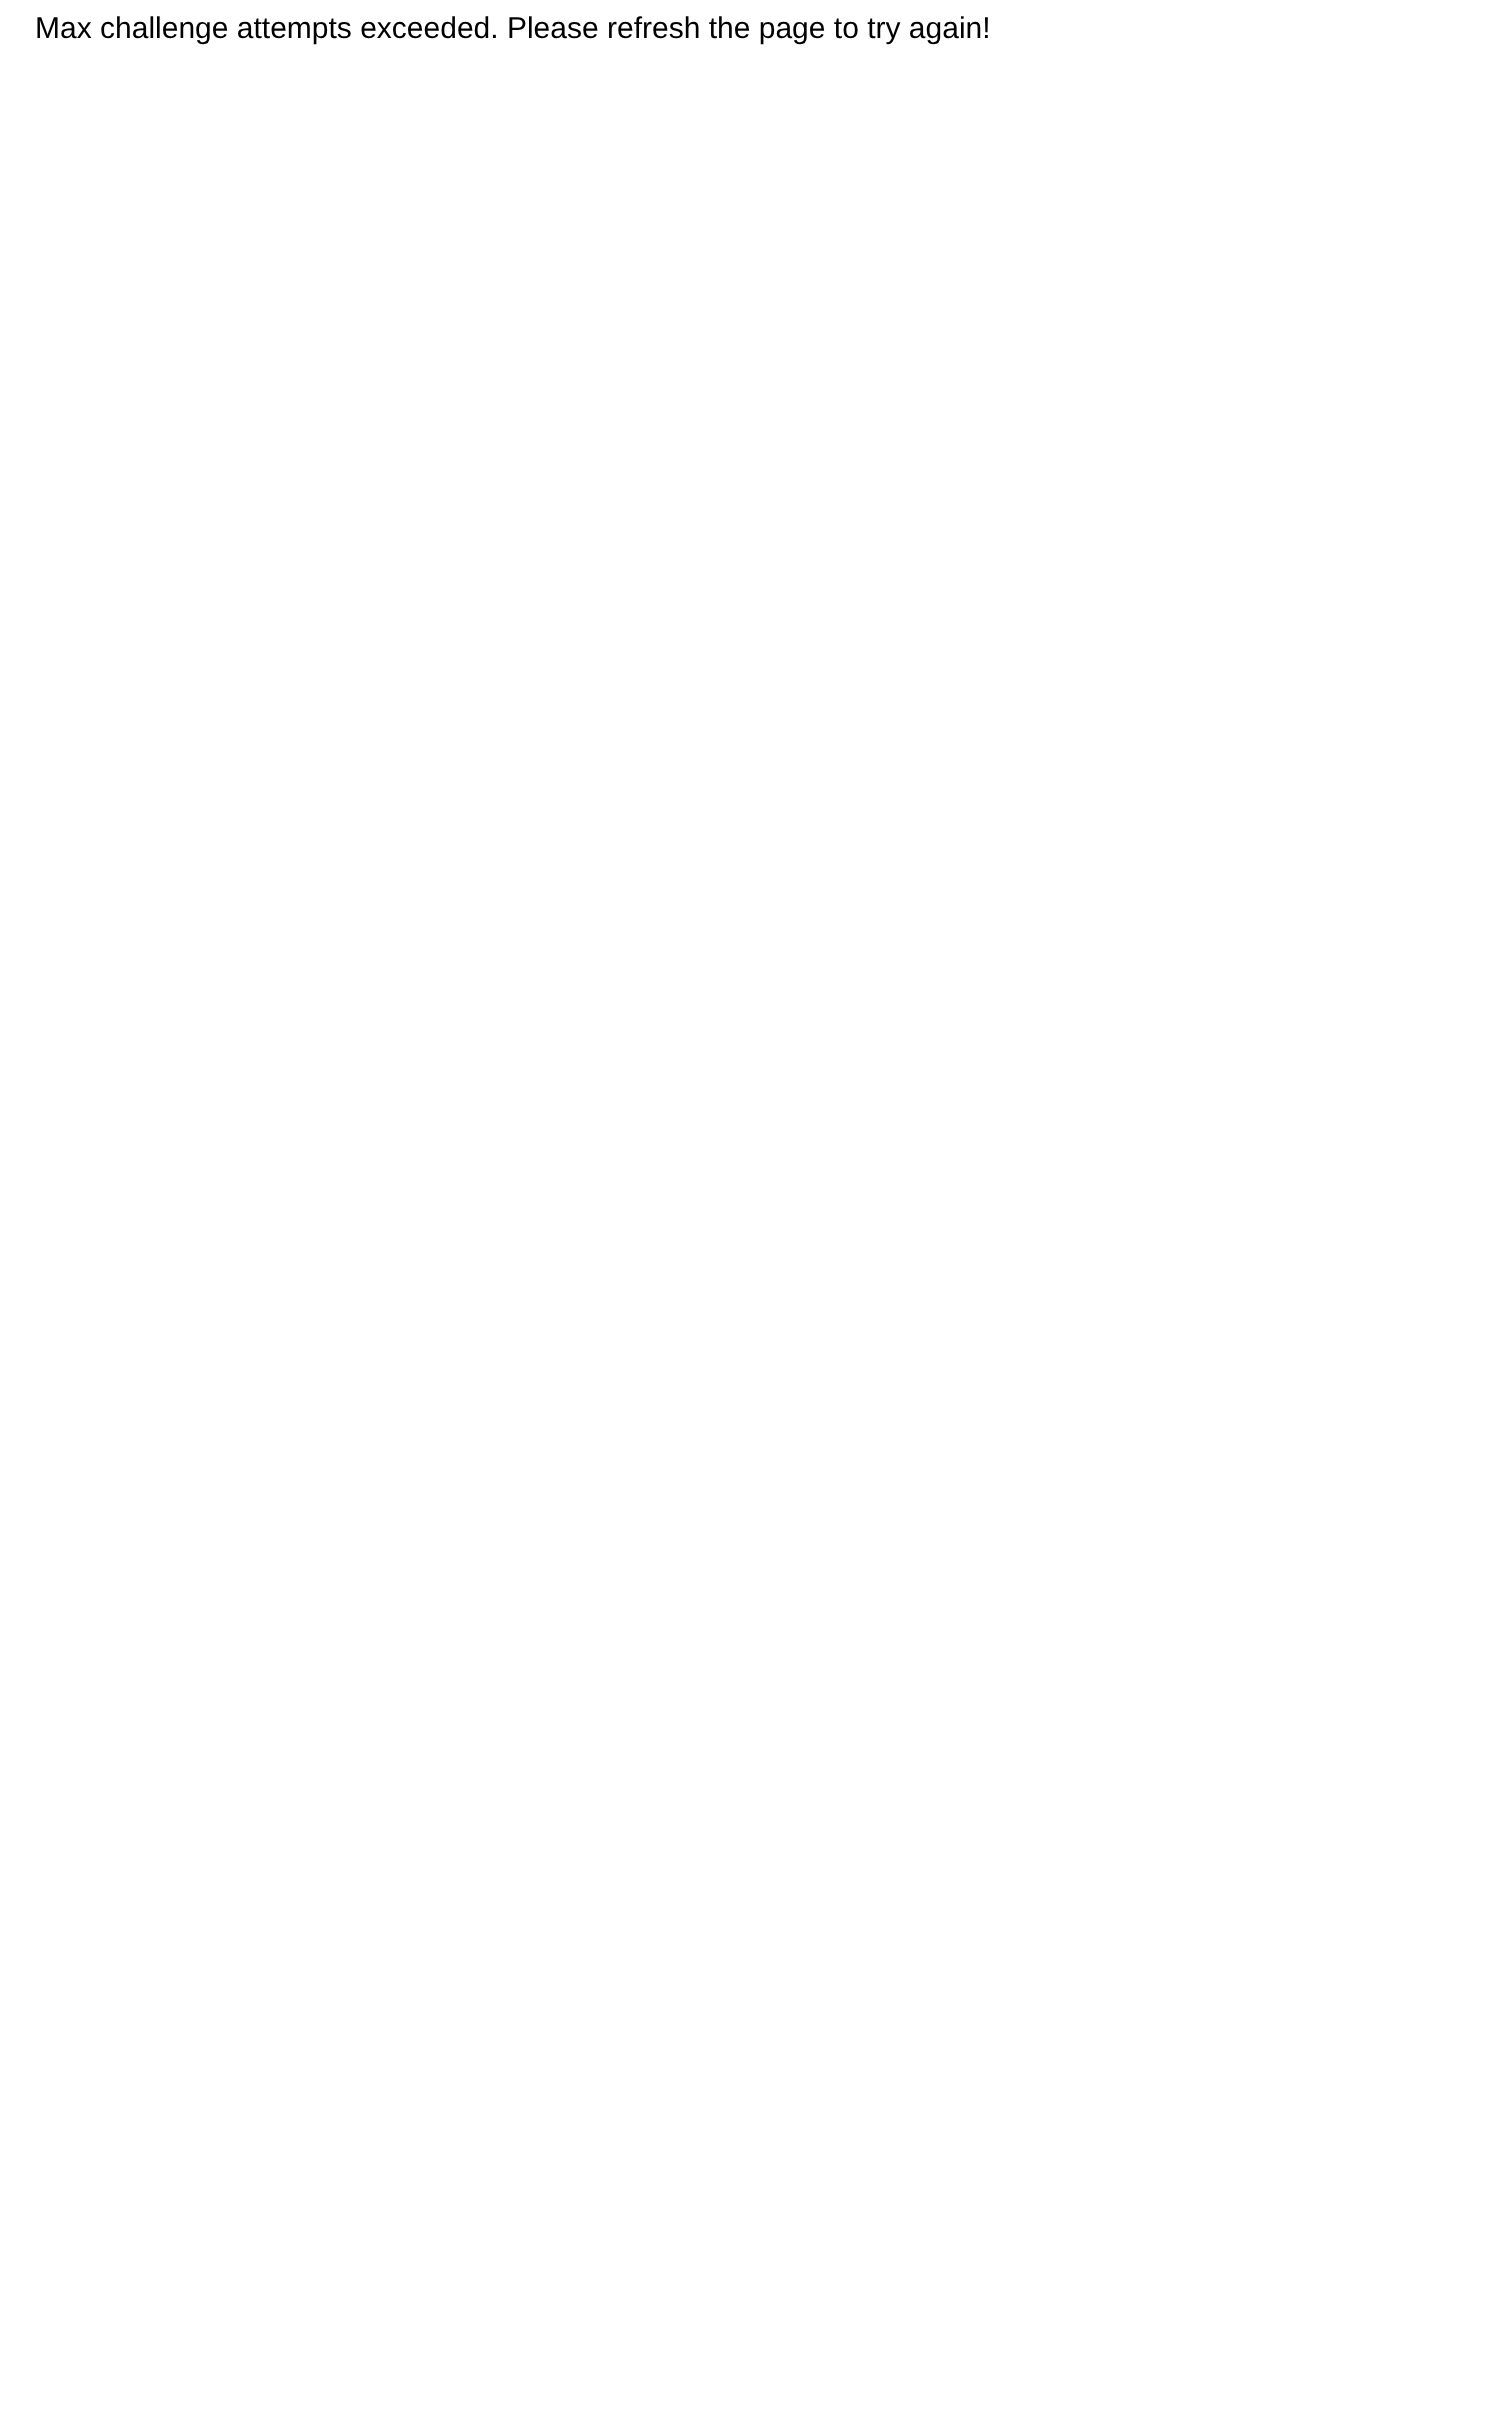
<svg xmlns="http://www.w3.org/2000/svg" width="1504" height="2422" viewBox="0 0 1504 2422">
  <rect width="100%" height="100%" fill="#fff"/>
  <text x="35" y="38" font-family="Liberation Sans" font-size="30" fill="#000">Max challenge attempts exceeded. Please refresh the page to try again!</text>
</svg>
